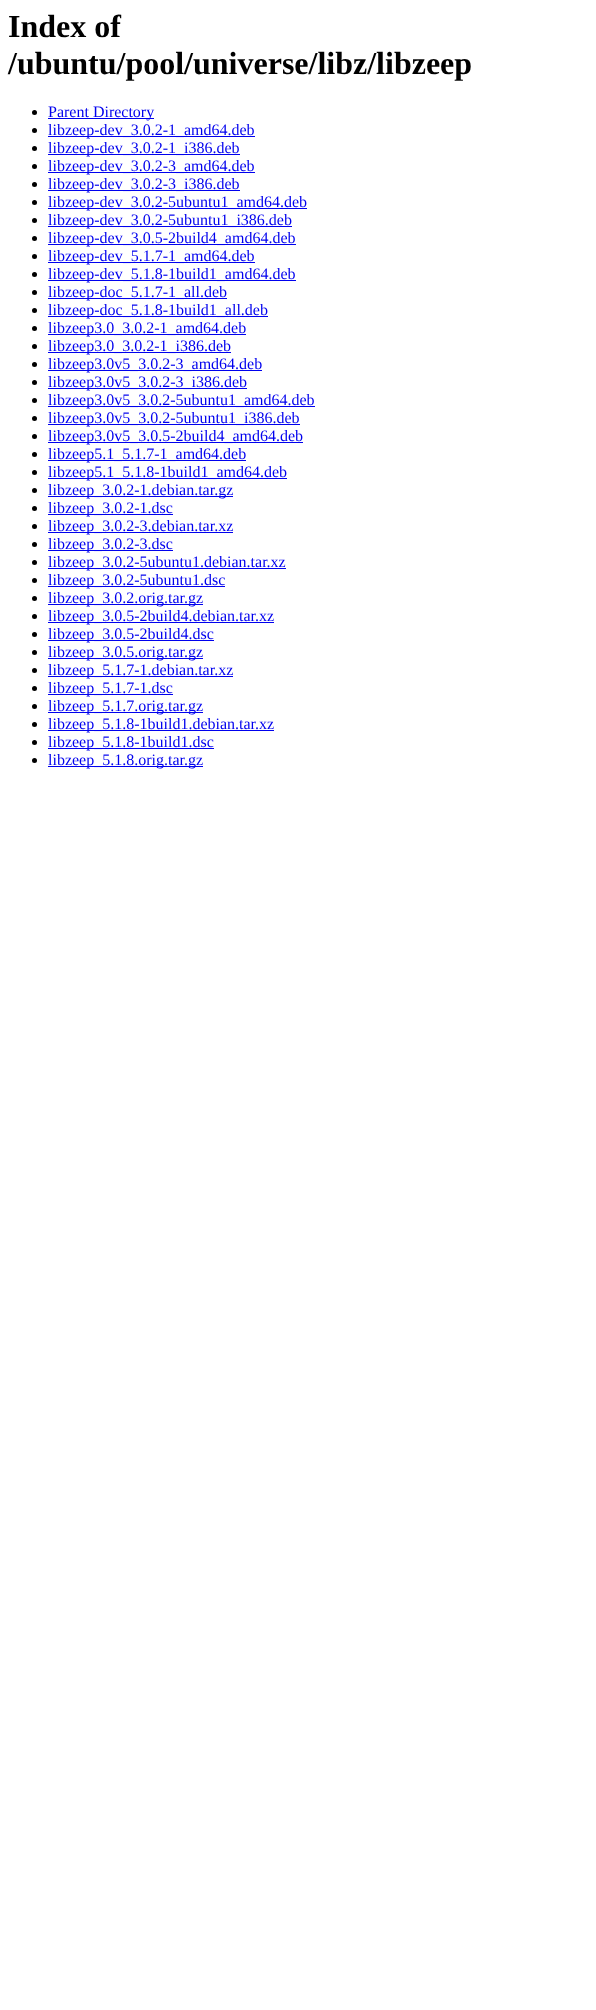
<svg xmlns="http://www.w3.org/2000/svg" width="596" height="2010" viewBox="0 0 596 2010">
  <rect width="100%" height="100%" fill="#fff"/>
  <circle cx="34.5" cy="112.5" r="2.5" fill="#000"/>
  <path d="M48 118h106v1H48z" fill="#00e"/>
  <circle cx="34.5" cy="130.5" r="2.5" fill="#000"/>
  <path d="M48 136h207v1H48z" fill="#00e"/>
  <circle cx="34.5" cy="148.5" r="2.5" fill="#000"/>
  <path d="M48 154h192v1H48z" fill="#00e"/>
  <circle cx="34.5" cy="166.5" r="2.5" fill="#000"/>
  <path d="M48 172h207v1H48z" fill="#00e"/>
  <circle cx="34.5" cy="184.5" r="2.5" fill="#000"/>
  <path d="M48 190h192v1H48z" fill="#00e"/>
  <circle cx="34.5" cy="202.5" r="2.5" fill="#000"/>
  <path d="M48 208h259v1H48z" fill="#00e"/>
  <circle cx="34.5" cy="220.5" r="2.5" fill="#000"/>
  <path d="M48 226h244v1H48z" fill="#00e"/>
  <circle cx="34.5" cy="238.5" r="2.5" fill="#000"/>
  <path d="M48 244h248v1H48z" fill="#00e"/>
  <circle cx="34.5" cy="256.5" r="2.5" fill="#000"/>
  <path d="M48 262h207v1H48z" fill="#00e"/>
  <circle cx="34.5" cy="274.5" r="2.5" fill="#000"/>
  <path d="M48 280h248v1H48z" fill="#00e"/>
  <circle cx="34.5" cy="292.5" r="2.5" fill="#000"/>
  <path d="M48 298h179v1H48z" fill="#00e"/>
  <circle cx="34.5" cy="310.5" r="2.5" fill="#000"/>
  <path d="M48 316h220v1H48z" fill="#00e"/>
  <circle cx="34.5" cy="328.5" r="2.5" fill="#000"/>
  <path d="M48 334h198v1H48z" fill="#00e"/>
  <circle cx="34.5" cy="346.5" r="2.5" fill="#000"/>
  <path d="M48 352h183v1H48z" fill="#00e"/>
  <circle cx="34.5" cy="364.5" r="2.5" fill="#000"/>
  <path d="M48 370h214v1H48z" fill="#00e"/>
  <circle cx="34.5" cy="382.5" r="2.5" fill="#000"/>
  <path d="M48 388h199v1H48z" fill="#00e"/>
  <circle cx="34.5" cy="400.5" r="2.5" fill="#000"/>
  <path d="M48 406h267v1H48z" fill="#00e"/>
  <circle cx="34.5" cy="418.5" r="2.5" fill="#000"/>
  <path d="M48 424h252v1H48z" fill="#00e"/>
  <circle cx="34.5" cy="436.5" r="2.5" fill="#000"/>
  <path d="M48 442h255v1H48z" fill="#00e"/>
  <circle cx="34.5" cy="454.5" r="2.5" fill="#000"/>
  <path d="M48 460h198v1H48z" fill="#00e"/>
  <circle cx="34.5" cy="472.5" r="2.5" fill="#000"/>
  <path d="M48 478h239v1H48z" fill="#00e"/>
  <circle cx="34.5" cy="490.5" r="2.5" fill="#000"/>
  <path d="M48 496h185v1H48z" fill="#00e"/>
  <circle cx="34.5" cy="508.5" r="2.5" fill="#000"/>
  <path d="M48 514h125v1H48z" fill="#00e"/>
  <circle cx="34.5" cy="526.5" r="2.5" fill="#000"/>
  <path d="M48 532h185v1H48z" fill="#00e"/>
  <circle cx="34.5" cy="544.5" r="2.5" fill="#000"/>
  <path d="M48 550h125v1H48z" fill="#00e"/>
  <circle cx="34.5" cy="562.5" r="2.5" fill="#000"/>
  <path d="M48 568h238v1H48z" fill="#00e"/>
  <circle cx="34.5" cy="580.5" r="2.5" fill="#000"/>
  <path d="M48 586h177v1H48z" fill="#00e"/>
  <circle cx="34.5" cy="598.5" r="2.5" fill="#000"/>
  <path d="M48 604h155v1H48z" fill="#00e"/>
  <circle cx="34.5" cy="616.5" r="2.5" fill="#000"/>
  <path d="M48 622h226v1H48z" fill="#00e"/>
  <circle cx="34.5" cy="634.5" r="2.5" fill="#000"/>
  <path d="M48 640h166v1H48z" fill="#00e"/>
  <circle cx="34.5" cy="652.5" r="2.5" fill="#000"/>
  <path d="M48 658h155v1H48z" fill="#00e"/>
  <circle cx="34.5" cy="670.5" r="2.5" fill="#000"/>
  <path d="M48 676h185v1H48z" fill="#00e"/>
  <circle cx="34.5" cy="688.5" r="2.5" fill="#000"/>
  <path d="M48 694h125v1H48z" fill="#00e"/>
  <circle cx="34.5" cy="706.5" r="2.5" fill="#000"/>
  <path d="M48 712h155v1H48z" fill="#00e"/>
  <circle cx="34.5" cy="724.5" r="2.5" fill="#000"/>
  <path d="M48 730h226v1H48z" fill="#00e"/>
  <circle cx="34.5" cy="742.5" r="2.5" fill="#000"/>
  <path d="M48 748h166v1H48z" fill="#00e"/>
  <circle cx="34.5" cy="760.5" r="2.5" fill="#000"/>
  <path d="M48 766h155v1H48z" fill="#00e"/>
  <g font-family="Liberation Serif" font-size="32" font-weight="bold" fill="#000">
    <text x="8" y="37">Index of</text>
    <text x="8" y="74">/ubuntu/pool/universe/libz/libzeep</text>
  </g>
  <g font-family="Liberation Serif" font-size="16" fill="#00e">
    <text x="48" y="117">Parent Directory</text>
    <text x="48" y="135">libzeep-dev_3.0.2-1_amd64.deb</text>
    <text x="48" y="153">libzeep-dev_3.0.2-1_i386.deb</text>
    <text x="48" y="171">libzeep-dev_3.0.2-3_amd64.deb</text>
    <text x="48" y="189">libzeep-dev_3.0.2-3_i386.deb</text>
    <text x="48" y="207">libzeep-dev_3.0.2-5ubuntu1_amd64.deb</text>
    <text x="48" y="225">libzeep-dev_3.0.2-5ubuntu1_i386.deb</text>
    <text x="48" y="243">libzeep-dev_3.0.5-2build4_amd64.deb</text>
    <text x="48" y="261">libzeep-dev_5.1.7-1_amd64.deb</text>
    <text x="48" y="279">libzeep-dev_5.1.8-1build1_amd64.deb</text>
    <text x="48" y="297">libzeep-doc_5.1.7-1_all.deb</text>
    <text x="48" y="315">libzeep-doc_5.1.8-1build1_all.deb</text>
    <text x="48" y="333">libzeep3.0_3.0.2-1_amd64.deb</text>
    <text x="48" y="351">libzeep3.0_3.0.2-1_i386.deb</text>
    <text x="48" y="369">libzeep3.0v5_3.0.2-3_amd64.deb</text>
    <text x="48" y="387">libzeep3.0v5_3.0.2-3_i386.deb</text>
    <text x="48" y="405">libzeep3.0v5_3.0.2-5ubuntu1_amd64.deb</text>
    <text x="48" y="423">libzeep3.0v5_3.0.2-5ubuntu1_i386.deb</text>
    <text x="48" y="441">libzeep3.0v5_3.0.5-2build4_amd64.deb</text>
    <text x="48" y="459">libzeep5.1_5.1.7-1_amd64.deb</text>
    <text x="48" y="477">libzeep5.1_5.1.8-1build1_amd64.deb</text>
    <text x="48" y="495">libzeep_3.0.2-1.debian.tar.gz</text>
    <text x="48" y="513">libzeep_3.0.2-1.dsc</text>
    <text x="48" y="531">libzeep_3.0.2-3.debian.tar.xz</text>
    <text x="48" y="549">libzeep_3.0.2-3.dsc</text>
    <text x="48" y="567">libzeep_3.0.2-5ubuntu1.debian.tar.xz</text>
    <text x="48" y="585">libzeep_3.0.2-5ubuntu1.dsc</text>
    <text x="48" y="603">libzeep_3.0.2.orig.tar.gz</text>
    <text x="48" y="621">libzeep_3.0.5-2build4.debian.tar.xz</text>
    <text x="48" y="639">libzeep_3.0.5-2build4.dsc</text>
    <text x="48" y="657">libzeep_3.0.5.orig.tar.gz</text>
    <text x="48" y="675">libzeep_5.1.7-1.debian.tar.xz</text>
    <text x="48" y="693">libzeep_5.1.7-1.dsc</text>
    <text x="48" y="711">libzeep_5.1.7.orig.tar.gz</text>
    <text x="48" y="729">libzeep_5.1.8-1build1.debian.tar.xz</text>
    <text x="48" y="747">libzeep_5.1.8-1build1.dsc</text>
    <text x="48" y="765">libzeep_5.1.8.orig.tar.gz</text>
  </g>
</svg>
